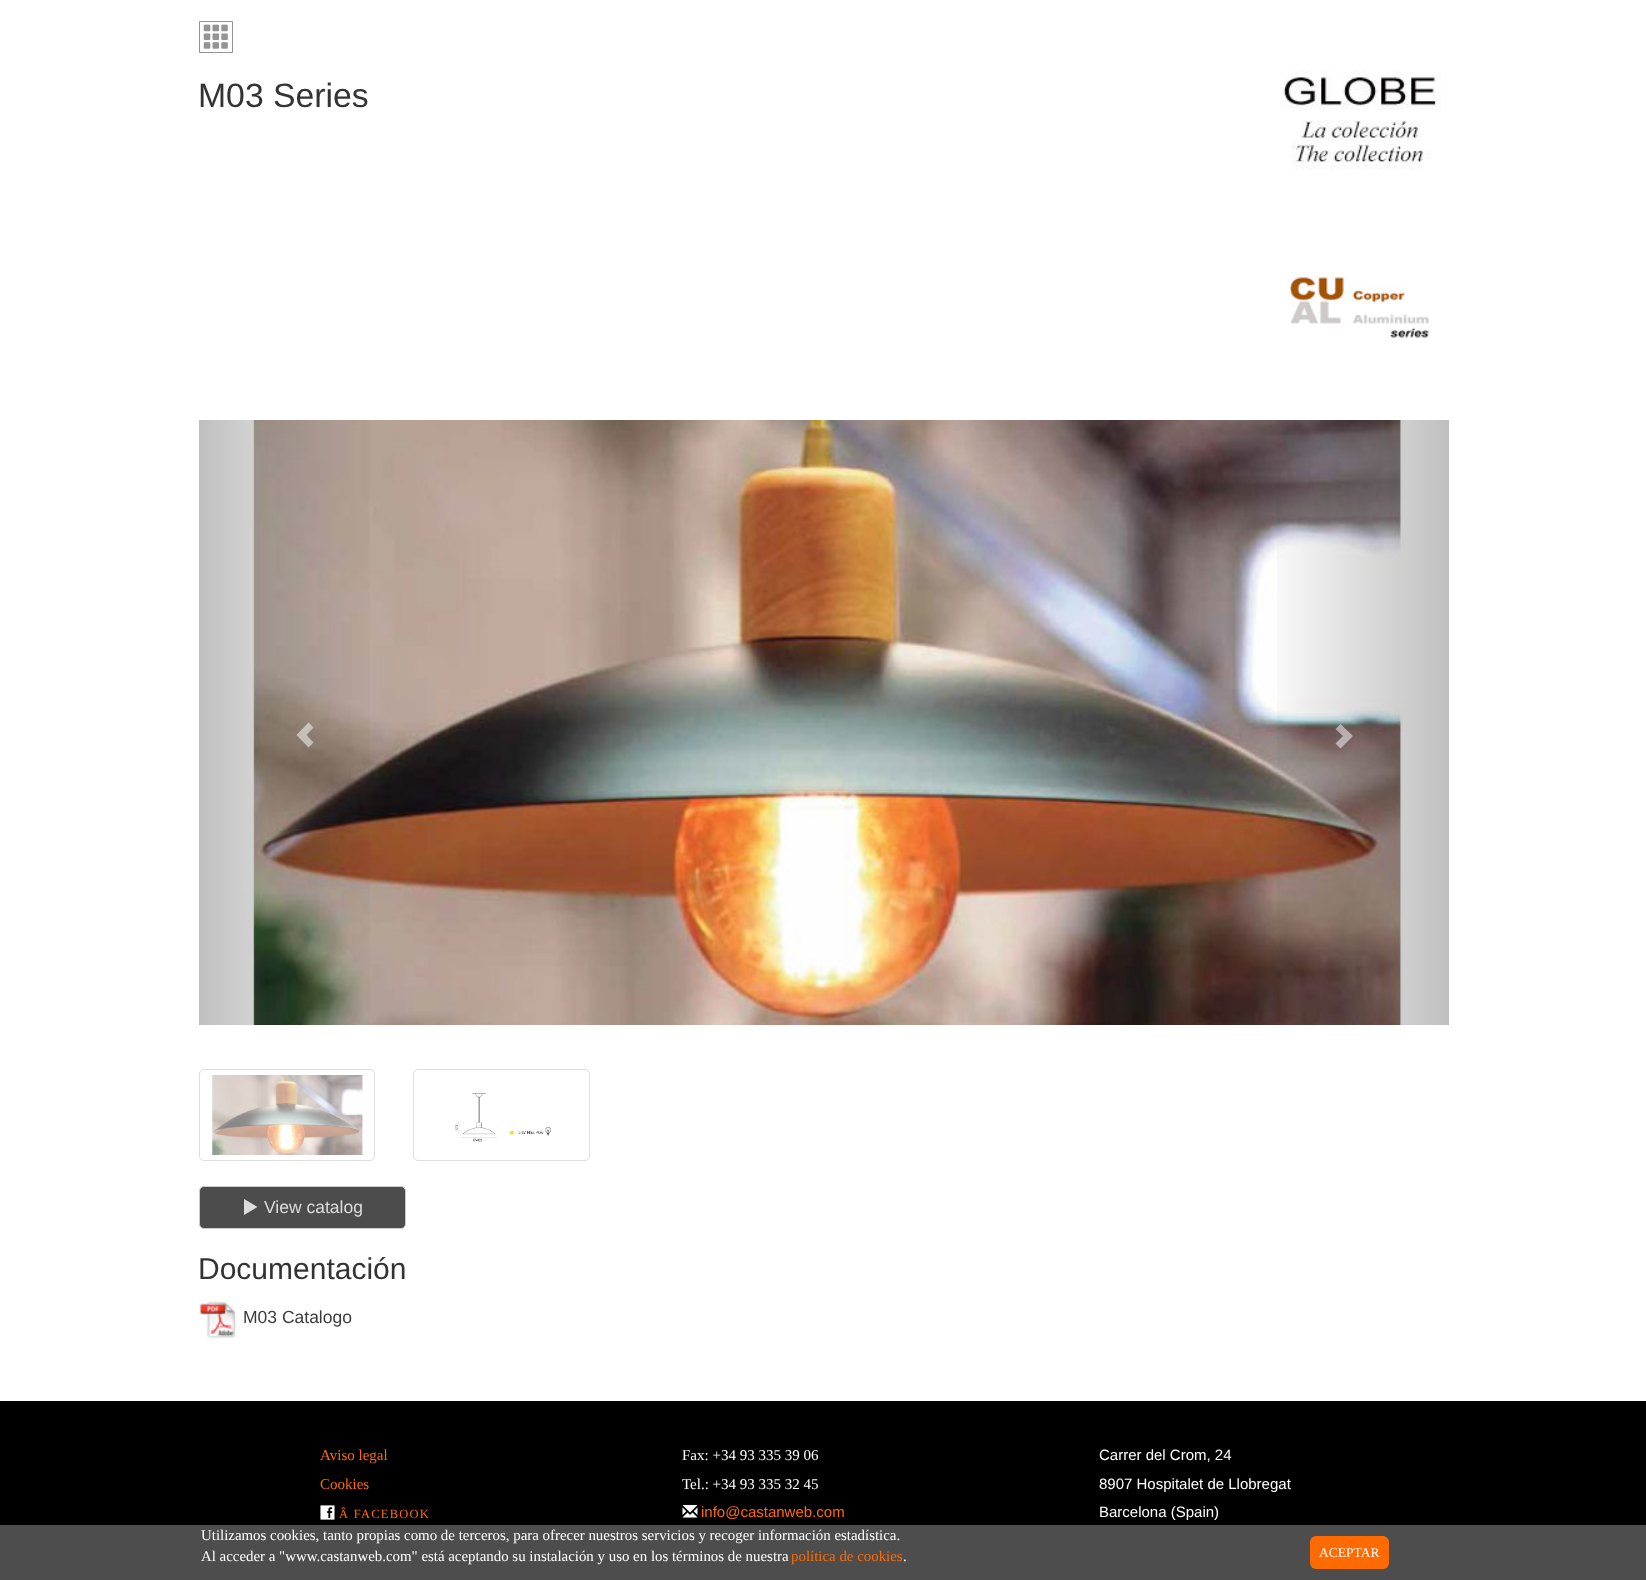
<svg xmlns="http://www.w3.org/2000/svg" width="1646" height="1580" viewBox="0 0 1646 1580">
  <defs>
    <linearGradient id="g1" gradientUnits="userSpaceOnUse" x1="199" y1="723" x2="386" y2="723"><stop offset="0" stop-color="#000" stop-opacity="0.25"/><stop offset="1" stop-color="#000" stop-opacity="0"/></linearGradient>
    <linearGradient id="g2" gradientUnits="userSpaceOnUse" x1="1261" y1="723" x2="1449" y2="723"><stop offset="0" stop-color="#000" stop-opacity="0"/><stop offset="1" stop-color="#000" stop-opacity="0.25"/></linearGradient>
  </defs>
  <rect width="100%" height="100%" fill="#000"/>
  <path d="M0 0h1646v1401H0z" fill="#fff"/>
  <path d="M199.5 21.5h33v31H199.5z" fill="none" stroke="#949494"/>
  <image x="203" y="24" width="25" height="25" href="img/1.png"/>
  <image x="1281" y="70" width="160" height="100" href="img/2.png"/>
  <image x="1289" y="275" width="140" height="63" href="img/3.png"/>
  <image x="242" y="420" width="1162" height="605" href="img/4.png"/>
  <path d="M199 420h171v605H199z" fill="url(#g1)"/>
  <path d="M296.5 735L308.5 747.5L313.5 742.5L306.5 735L313.5 727.5L308.5 722.5Z" fill="#ffffff80"/>
  <path d="M1277 420h172v605H1277z" fill="url(#g2)"/>
  <path d="M1335.5 743.5L1343 736L1335.5 729L1340.5 724L1353 736L1340.5 748.5Z" fill="#ffffff80"/>
  <rect x="199.5" y="1069.5" width="175" height="91" rx="4.5" fill="none" stroke="#ddd"/>
  <image x="212" y="1075" width="151" height="80" href="img/5.png"/>
  <rect x="413.5" y="1069.5" width="176" height="91" rx="4.5" fill="none" stroke="#ddd"/>
  <image x="455" y="1093" width="97" height="49" href="img/6.png"/>
  <rect x="199.5" y="1186.5" width="206" height="42" rx="4.5" fill="#4c4c4c" stroke="#ccc"/>
  <path d="M244 1215L257.5 1207L244 1199Z" fill="#dcdcdc"/>
  <image x="199" y="1299" width="38" height="40" href="img/7.png"/>
  <image x="320" y="1505" width="15" height="15" href="img/8.png"/>
  <image x="682" y="1505" width="16" height="13" href="img/9.png"/>
  <path d="M0 1525h1646v55H0z" fill="#4d4d4d"/>
  <rect x="1310" y="1536" width="79" height="33" rx="6" fill="#ff6b01"/>
  <text x="198" y="107" font-family="Liberation Sans" font-size="33.75" fill="#333">M03 Series</text>
  <text x="264" y="1213" font-family="Liberation Sans" font-size="17.5" fill="#dcdcdc">View catalog</text>
  <text x="198" y="1279" font-family="Liberation Sans" font-size="30" fill="#333">Documentación</text>
  <text x="243" y="1323" font-family="Liberation Sans" font-size="17.5" fill="#3c3c3c">M03 Catalogo</text>
  <g font-family="Liberation Serif" font-size="15" fill="#ff6b01">
    <text x="320" y="1460">Aviso legal</text>
    <text x="320" y="1489">Cookies</text>
  </g>
  <text x="339" y="1518" font-family="Liberation Serif" font-size="12.5" letter-spacing="1.25" fill="#ff6b01">Â FACEBOOK</text>
  <g font-family="Liberation Serif" font-size="15" fill="#fff">
    <text x="682" y="1460">Fax: +34 93 335 39 06</text>
    <text x="682" y="1489">Tel.: +34 93 335 32 45</text>
  </g>
  <text x="701" y="1517" font-family="Liberation Sans" font-size="15" fill="#ff6b01">info@castanweb.com</text>
  <g font-family="Liberation Sans" font-size="15" fill="#fff">
    <text x="1099" y="1460">Carrer del Crom, 24</text>
    <text x="1099" y="1489">8907 Hospitalet de Llobregat</text>
    <text x="1099" y="1517">Barcelona (Spain)</text>
  </g>
  <g font-family="Liberation Serif" font-size="14.9" fill="#fff">
    <text x="201" y="1540">Utilizamos cookies, tanto propias como de terceros, para ofrecer nuestros servicios y recoger información estadística.</text>
    <text x="201" y="1561">Al acceder a "www.castanweb.com" está aceptando su instalación y uso en los términos de nuestra</text>
  </g>
  <text x="791" y="1561" font-family="Liberation Serif" font-size="14.9" fill="#ff6b01">política de cookies</text>
  <text x="903" y="1561" font-family="Liberation Serif" font-size="14.9" fill="#fff">.</text>
  <text x="1319" y="1557" font-family="Liberation Serif" font-size="13.5" fill="#fff">ACEPTAR</text>
</svg>
